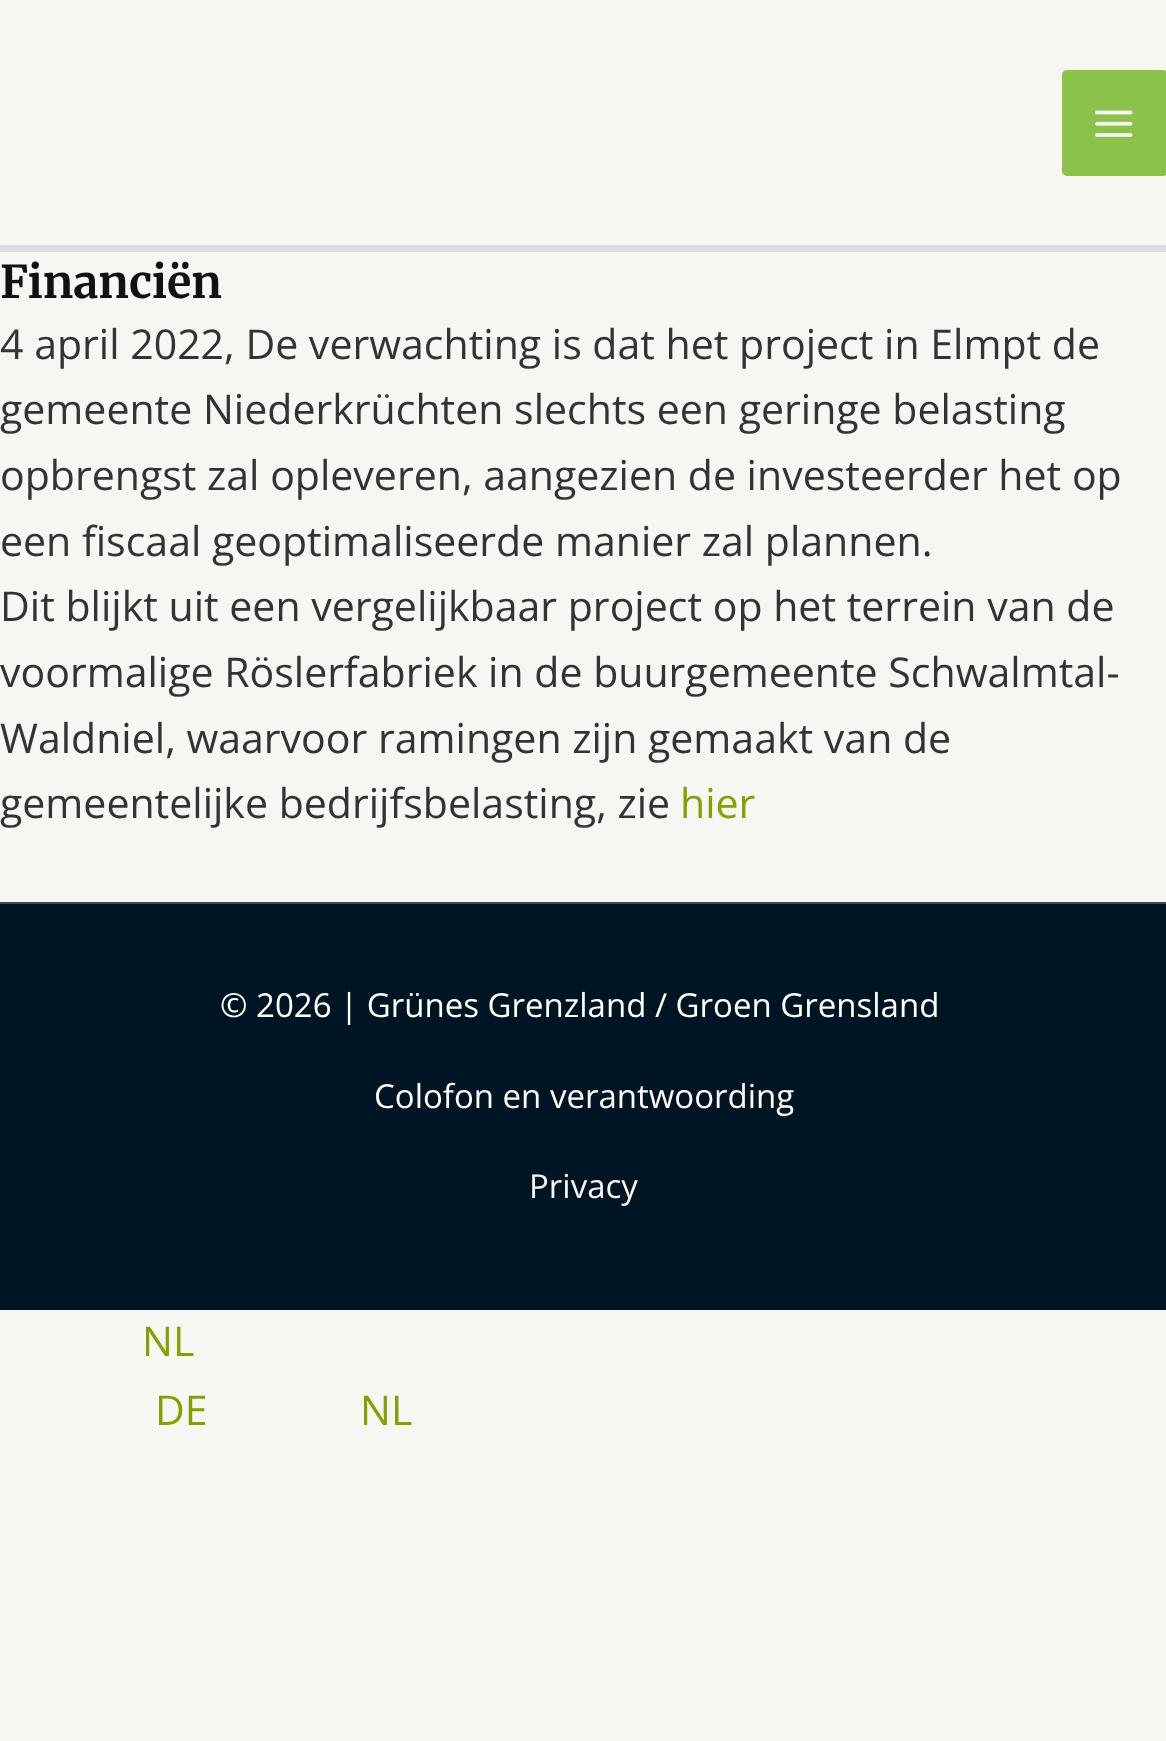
<svg xmlns="http://www.w3.org/2000/svg" width="1166" height="1741" viewBox="0 0 1166 1741">
  <rect width="100%" height="100%" fill="#f8f6f3"/>
  <path d="M0 245h1166v7H0z" fill="#ddd"/>
  <rect x="1062" y="70" width="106" height="106" rx="5" fill="#8bc34a"/>
  <image x="1095" y="110" width="38" height="27" href="img/1.png"/>
  <path d="M0 904h1166v406H0z" fill="#001524"/>
  <path d="M0 902h1166v2H0z" fill="#3b464e"/>
  <text x="0" y="298" font-family="Merriweather" font-size="45" font-weight="bold" fill="#111">Financiën</text>
  <g font-family="Open Sans" font-size="41.05" fill="#333">
    <text x="0" y="359">4 april 2022, De verwachting is dat het project in Elmpt de</text>
    <text x="0" y="424">gemeente Niederkrüchten slechts een geringe belasting</text>
    <text x="0" y="490">opbrengst zal opleveren, aangezien de investeerder het op</text>
    <text x="0" y="556">een fiscaal geoptimaliseerde manier zal plannen.</text>
    <text x="0" y="621">Dit blijkt uit een vergelijkbaar project op het terrein van de</text>
    <text x="0" y="687">voormalige Röslerfabriek in de buurgemeente Schwalmtal-</text>
    <text x="0" y="753">Waldniel, waarvoor ramingen zijn gemaakt van de</text>
    <text x="0" y="818">gemeentelijke bedrijfsbelasting, zie</text>
  </g>
  <text x="680" y="818" font-family="Open Sans" font-size="41.05" fill="#83a100">hier</text>
  <text x="220" y="1017" font-family="Open Sans" font-size="33" fill="#fff">© 2026 | Grünes Grenzland / Groen Grensland</text>
  <text x="374" y="1108" font-family="Open Sans" font-size="33" fill="#fff8f8">Colofon en verantwoording</text>
  <text x="529" y="1198" font-family="Open Sans" font-size="33" fill="#f8f6f3">Privacy</text>
  <g font-family="Open Sans" font-size="41.05" fill="#83a100">
    <text x="142" y="1356">NL</text>
    <text x="155" y="1425">DE</text>
    <text x="360" y="1425">NL</text>
  </g>
</svg>
